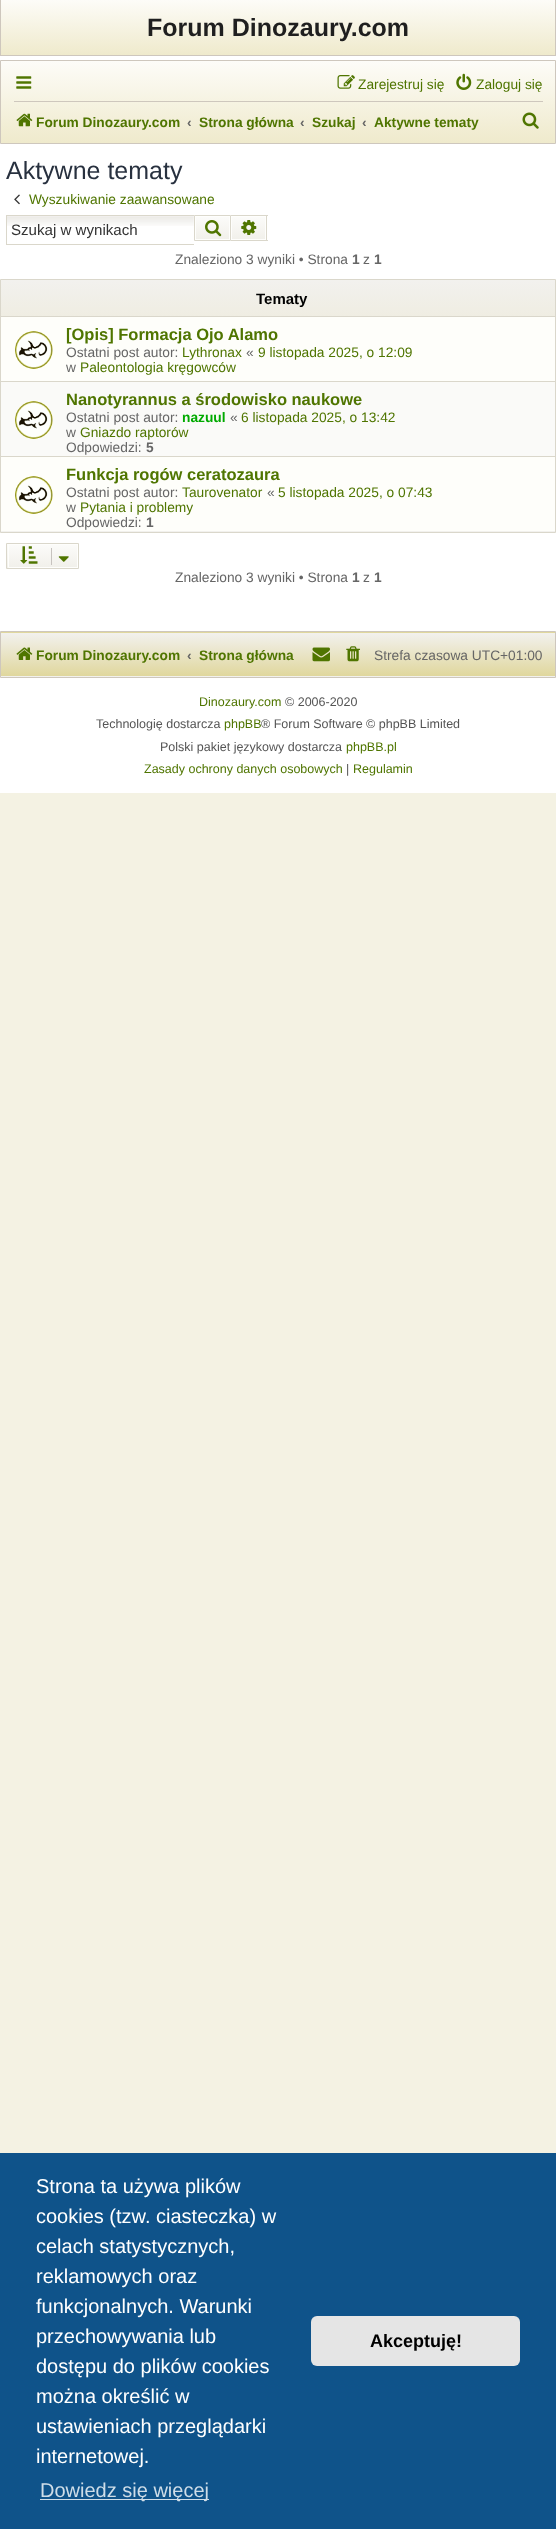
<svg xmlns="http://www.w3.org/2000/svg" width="556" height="2529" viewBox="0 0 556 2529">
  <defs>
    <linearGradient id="g1" gradientUnits="userSpaceOnUse" x1="278" y1="0" x2="278" y2="55"><stop offset="0" stop-color="#fdfcf8"/><stop offset="1" stop-color="#efeacc"/></linearGradient>
    <linearGradient id="g2" gradientUnits="userSpaceOnUse" x1="278" y1="61" x2="278" y2="143"><stop offset="0" stop-color="#fdfcf8"/><stop offset="1" stop-color="#efeacc"/></linearGradient>
    <linearGradient id="g3" gradientUnits="userSpaceOnUse" x1="213" y1="216" x2="213" y2="240"><stop offset="0" stop-color="#fcfcfa"/><stop offset="1" stop-color="#f1f0ea"/></linearGradient>
    <linearGradient id="g4" gradientUnits="userSpaceOnUse" x1="249" y1="216" x2="249" y2="240"><stop offset="0" stop-color="#fcfcfa"/><stop offset="1" stop-color="#f1f0ea"/></linearGradient>
    <linearGradient id="g5" gradientUnits="userSpaceOnUse" x1="278" y1="280" x2="278" y2="531"><stop offset="0" stop-color="#f2f1ee"/><stop offset="1" stop-color="#e0d79d"/></linearGradient>
    <linearGradient id="g6" gradientUnits="userSpaceOnUse" x1="278" y1="531" x2="278" y2="783"><stop offset="0" stop-color="#f2f1ee"/><stop offset="1" stop-color="#e0d79d"/></linearGradient>
    <linearGradient id="g7" gradientUnits="userSpaceOnUse" x1="43" y1="544" x2="43" y2="568"><stop offset="0" stop-color="#fcfcfa"/><stop offset="1" stop-color="#f1f0ea"/></linearGradient>
    <linearGradient id="g8" gradientUnits="userSpaceOnUse" x1="278" y1="589" x2="278" y2="633"><stop offset="0" stop-color="#f2f1ee"/><stop offset="1" stop-color="#e0d79d"/></linearGradient>
    <linearGradient id="g9" gradientUnits="userSpaceOnUse" x1="278" y1="633" x2="278" y2="676"><stop offset="0" stop-color="#f2f1ee"/><stop offset="1" stop-color="#e0d79d"/></linearGradient>
    <linearGradient id="g10" gradientUnits="userSpaceOnUse" x1="278" y1="676" x2="278" y2="720"><stop offset="0" stop-color="#f2f1ee"/><stop offset="1" stop-color="#e0d79d"/></linearGradient>
  </defs>
  <rect width="100%" height="100%" fill="#f4f2e3"/>
  <path d="M0 56h556v737H0z" fill="#fff"/>
  <path d="M1 0h554v55H1z" fill="url(#g1)"/>
  <path d="M555 0h1v56H555z" fill="#cec7bd"/>
  <path d="M0 55h556v1H0z" fill="#cec7bd"/>
  <path d="M0 0h1v56H0z" fill="#cec7bd"/>
  <path d="M1 61h554v82H1z" fill="url(#g2)"/>
  <path d="M0.5 60.5h555v83H0.5z" fill="none" stroke="#cec7bd"/>
  <image x="16" y="76" width="16" height="13" href="img/1.png"/>
  <image x="337" y="75" width="18" height="14" href="img/2.png"/>
  <image x="456" y="73" width="16" height="17" href="img/3.png"/>
  <path d="M14 101h529v1H14z" fill="#cec7bd"/>
  <image x="16" y="113" width="17" height="14" href="img/4.png"/>
  <image x="522" y="112" width="17" height="17" href="img/5.png"/>
  <image x="14" y="194" width="6" height="11" href="img/6.png"/>
  <image x="7" y="216" width="187" height="10" href="img/7.png"/>
  <path d="M6 215h188v1H6z" fill="#dad7cb"/>
  <path d="M6 244h188v1H6z" fill="#dad7cb"/>
  <path d="M6 215h1v30H6z" fill="#dad7cb"/>
  <path d="M196 217h33v22H196z" fill="url(#g3)"/>
  <path d="M195.5 216.5h34v23H195.5z" fill="none" stroke="#fefefc"/>
  <path d="M194.5 215.5h36v25H194.5z" fill="none" stroke="#dad7cb"/>
  <image x="205" y="220" width="17" height="17" href="img/8.png"/>
  <path d="M232 217h33v22H232z" fill="url(#g4)"/>
  <path d="M231.5 216.5h34v23H231.5z" fill="none" stroke="#fefefc"/>
  <path d="M231 215h37v1H231z" fill="#dad7cb"/>
  <path d="M266 215h1v26H266z" fill="#dad7cb"/>
  <path d="M231 240h37v1H231z" fill="#dad7cb"/>
  <image x="241" y="220" width="16" height="15" href="img/9.png"/>
  <path d="M1 280h554v36H1z" fill="url(#g5)"/>
  <path d="M0 531h556v1H0z" fill="url(#g6)"/>
  <path d="M0.5 279.5h555v253H0.5z" fill="none" stroke="#dad7cb"/>
  <path d="M1 317h554v64H1z" fill="#fefefa"/>
  <path d="M1 316h554v1H1z" fill="#dad7cb"/>
  <image x="15" y="331" width="38" height="38" href="img/10.png"/>
  <path d="M1 382h554v74H1z" fill="#fafaf8"/>
  <path d="M1 381h554v1H1z" fill="#dad7cb"/>
  <image x="15" y="401" width="38" height="38" href="img/11.png"/>
  <path d="M1 457h554v74H1z" fill="#fefefa"/>
  <path d="M1 456h554v1H1z" fill="#dad7cb"/>
  <image x="15" y="476" width="38" height="38" href="img/10.png"/>
  <path d="M7 544h70v24H7z" fill="url(#g7)"/>
  <path d="M8.5 544.5h69v23H8.5z" fill="none" stroke="#fefefc"/>
  <path d="M6.5 543.5h72v25H6.5z" fill="none" stroke="#dad7cb"/>
  <image x="20" y="546" width="18" height="18" href="img/12.png"/>
  <path d="M51 548h1v17H51z" fill="#c7c3bf"/>
  <image x="58" y="556" width="11" height="6" href="img/13.png"/>
  <path d="M0 632h556v1H0z" fill="url(#g8)"/>
  <path d="M1 633h554v43H1z" fill="url(#g9)"/>
  <path d="M0 676h556v1H0z" fill="url(#g10)"/>
  <path d="M0.5 631.5h555v46H0.5z" fill="none" stroke="#cec7bd"/>
  <image x="16" y="647" width="17" height="13" href="img/14.png"/>
  <image x="312" y="647" width="18" height="15" href="img/15.png"/>
  <image x="346" y="646" width="14" height="16" href="img/16.png"/>
  <path d="M0 2153h556v376H0z" fill="#0f538a"/>
  <path d="M40 2499h169v1H40z" fill="#cfdde8"/>
  <rect x="311" y="2316" width="209" height="50" rx="6" fill="#e5e5e5"/>
  <text x="147" y="36" font-family="Liberation Sans" font-size="25" font-weight="bold" fill="#1f1f1f">Forum Dinozaury.com</text>
  <g font-family="Liberation Sans" font-size="13.75" fill="#4f7500">
    <text x="358" y="89">Zarejestruj się</text>
    <text x="476" y="89">Zaloguj się</text>
  </g>
  <text x="36" y="127" font-family="Liberation Sans" font-size="13.75" font-weight="bold" fill="#4f7500">Forum Dinozaury.com</text>
  <text x="187" y="127" font-family="Liberation Sans" font-size="13.75" font-weight="bold" fill="#666">‹</text>
  <text x="199" y="127" font-family="Liberation Sans" font-size="13.75" font-weight="bold" fill="#4f7500">Strona główna</text>
  <text x="300" y="127" font-family="Liberation Sans" font-size="13.75" font-weight="bold" fill="#666">‹</text>
  <text x="312" y="127" font-family="Liberation Sans" font-size="13.75" font-weight="bold" fill="#4f7500">Szukaj</text>
  <text x="362" y="127" font-family="Liberation Sans" font-size="13.75" font-weight="bold" fill="#666">‹</text>
  <text x="374" y="127" font-family="Liberation Sans" font-size="13.75" font-weight="bold" fill="#4f7500">Aktywne tematy</text>
  <text x="6" y="179" font-family="Liberation Sans" font-size="25" fill="#28313f">Aktywne tematy</text>
  <text x="29" y="204" font-family="Liberation Sans" font-size="13.75" fill="#4f7500">Wyszukiwanie zaawansowane</text>
  <text x="11" y="235" font-family="Liberation Sans" font-size="15.1" fill="#333">Szukaj w wynikach</text>
  <text x="175" y="264" font-family="Liberation Sans" font-size="13.75" fill="#666">Znaleziono 3 wyniki • Strona</text>
  <text x="352" y="264" font-family="Liberation Sans" font-size="13.75" font-weight="bold" fill="#666">1</text>
  <text x="363" y="264" font-family="Liberation Sans" font-size="13.75" fill="#666">z</text>
  <text x="374" y="264" font-family="Liberation Sans" font-size="13.75" font-weight="bold" fill="#666">1</text>
  <text x="256" y="304" font-family="Liberation Sans" font-size="15" font-weight="bold" fill="#000">Tematy</text>
  <text x="66" y="340" font-family="Liberation Sans" font-size="16.5" font-weight="bold" fill="#4f7500">[Opis] Formacja Ojo Alamo</text>
  <text x="66" y="357" font-family="Liberation Sans" font-size="13.75" fill="#666">Ostatni post autor:</text>
  <text x="182" y="357" font-family="Liberation Sans" font-size="13.75" fill="#4f7500">Lythronax</text>
  <text x="246" y="357" font-family="Liberation Sans" font-size="13.75" fill="#666">«</text>
  <text x="258" y="357" font-family="Liberation Sans" font-size="13.75" fill="#4f7500">9 listopada 2025, o 12:09</text>
  <text x="66" y="372" font-family="Liberation Sans" font-size="13.75" fill="#666">w</text>
  <text x="80" y="372" font-family="Liberation Sans" font-size="13.75" fill="#4f7500">Paleontologia kręgowców</text>
  <text x="66" y="405" font-family="Liberation Sans" font-size="16.5" font-weight="bold" fill="#4f7500">Nanotyrannus a środowisko naukowe</text>
  <text x="66" y="422" font-family="Liberation Sans" font-size="13.75" fill="#666">Ostatni post autor:</text>
  <text x="182" y="422" font-family="Liberation Sans" font-size="13.75" font-weight="bold" fill="#0a0">nazuul</text>
  <text x="230" y="422" font-family="Liberation Sans" font-size="13.75" fill="#666">«</text>
  <text x="241" y="422" font-family="Liberation Sans" font-size="13.75" fill="#4f7500">6 listopada 2025, o 13:42</text>
  <text x="66" y="437" font-family="Liberation Sans" font-size="13.75" fill="#666">w</text>
  <text x="80" y="437" font-family="Liberation Sans" font-size="13.75" fill="#4f7500">Gniazdo raptorów</text>
  <text x="66" y="452" font-family="Liberation Sans" font-size="13.75" fill="#666">Odpowiedzi:</text>
  <text x="146" y="452" font-family="Liberation Sans" font-size="13.75" font-weight="bold" fill="#666">5</text>
  <text x="66" y="480" font-family="Liberation Sans" font-size="16.5" font-weight="bold" fill="#4f7500">Funkcja rogów ceratozaura</text>
  <text x="66" y="497" font-family="Liberation Sans" font-size="13.75" fill="#666">Ostatni post autor:</text>
  <text x="182" y="497" font-family="Liberation Sans" font-size="13.75" fill="#4f7500">Taurovenator</text>
  <text x="267" y="497" font-family="Liberation Sans" font-size="13.75" fill="#666">«</text>
  <text x="278" y="497" font-family="Liberation Sans" font-size="13.75" fill="#4f7500">5 listopada 2025, o 07:43</text>
  <text x="66" y="512" font-family="Liberation Sans" font-size="13.75" fill="#666">w</text>
  <text x="80" y="512" font-family="Liberation Sans" font-size="13.75" fill="#4f7500">Pytania i problemy</text>
  <text x="66" y="527" font-family="Liberation Sans" font-size="13.75" fill="#666">Odpowiedzi:</text>
  <text x="146" y="527" font-family="Liberation Sans" font-size="13.75" font-weight="bold" fill="#666">1</text>
  <text x="175" y="582" font-family="Liberation Sans" font-size="13.75" fill="#666">Znaleziono 3 wyniki • Strona</text>
  <text x="352" y="582" font-family="Liberation Sans" font-size="13.75" font-weight="bold" fill="#666">1</text>
  <text x="363" y="582" font-family="Liberation Sans" font-size="13.75" fill="#666">z</text>
  <text x="374" y="582" font-family="Liberation Sans" font-size="13.75" font-weight="bold" fill="#666">1</text>
  <text x="36" y="660" font-family="Liberation Sans" font-size="13.75" font-weight="bold" fill="#4f7500">Forum Dinozaury.com</text>
  <text x="187" y="660" font-family="Liberation Sans" font-size="13.75" font-weight="bold" fill="#666">‹</text>
  <text x="199" y="660" font-family="Liberation Sans" font-size="13.75" font-weight="bold" fill="#4f7500">Strona główna</text>
  <text x="374" y="660" font-family="Liberation Sans" font-size="13.75" fill="#666">Strefa czasowa UTC+01:00</text>
  <text x="199" y="706" font-family="Liberation Sans" font-size="12.5" fill="#4f7500">Dinozaury.com</text>
  <g font-family="Liberation Sans" font-size="12.5" fill="#555">
    <text x="285" y="706">© 2006-2020</text>
    <text x="96" y="728">Technologię dostarcza</text>
  </g>
  <text x="224" y="728" font-family="Liberation Sans" font-size="12.5" fill="#4f7500">phpBB</text>
  <g font-family="Liberation Sans" font-size="12.5" fill="#555">
    <text x="261" y="728">® Forum Software © phpBB Limited</text>
    <text x="160" y="751">Polski pakiet językowy dostarcza</text>
  </g>
  <g font-family="Liberation Sans" font-size="12.5" fill="#4f7500">
    <text x="346" y="751">phpBB.pl</text>
    <text x="144" y="773">Zasady ochrony danych osobowych</text>
  </g>
  <text x="346" y="773" font-family="Liberation Sans" font-size="12.5" fill="#555">|</text>
  <text x="353" y="773" font-family="Liberation Sans" font-size="12.5" fill="#4f7500">Regulamin</text>
  <g font-family="Liberation Sans" font-size="20" fill="#fff">
    <text x="36" y="2193">Strona ta używa plików</text>
    <text x="36" y="2223">cookies (tzw. ciasteczka) w</text>
    <text x="36" y="2253">celach statystycznych,</text>
    <text x="36" y="2283">reklamowych oraz</text>
    <text x="36" y="2313">funkcjonalnych. Warunki</text>
    <text x="36" y="2343">przechowywania lub</text>
    <text x="36" y="2373">dostępu do plików cookies</text>
    <text x="36" y="2403">można określić w</text>
    <text x="36" y="2433">ustawieniach przeglądarki</text>
    <text x="36" y="2463">internetowej.</text>
  </g>
  <text x="40" y="2497" font-family="Liberation Sans" font-size="20" fill="#cfdde8">Dowiedz się więcej</text>
  <text x="370" y="2347" font-family="Liberation Sans" font-size="18" font-weight="bold" fill="#000">Akceptuję!</text>
</svg>
